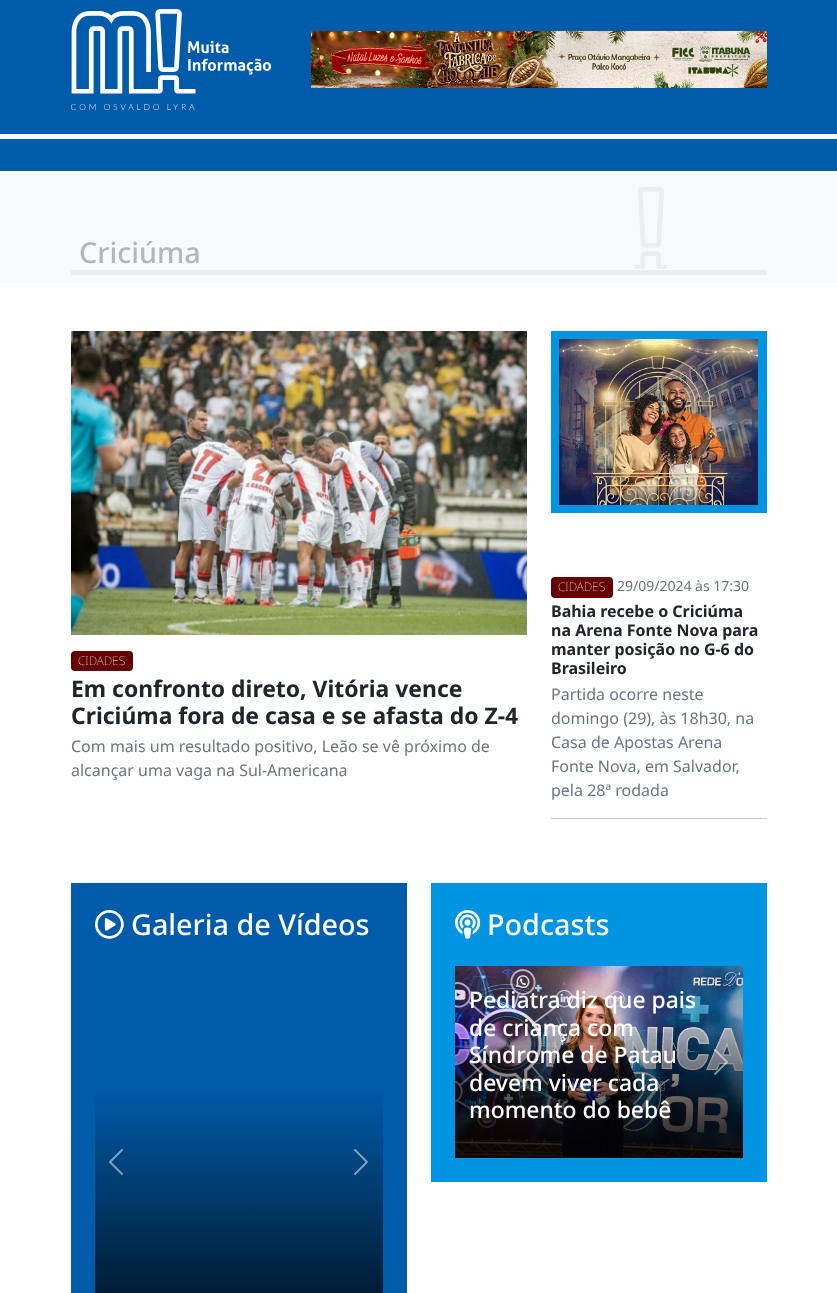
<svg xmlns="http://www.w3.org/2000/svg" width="837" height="1293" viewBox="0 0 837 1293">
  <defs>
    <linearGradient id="g1" gradientUnits="userSpaceOnUse" x1="239" y1="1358" x2="239" y2="966"><stop offset="0" stop-color="#000911"/><stop offset="0.7" stop-color="#005cab"/></linearGradient>
  </defs>
  <rect width="100%" height="100%" fill="#fff"/>
  <path d="M0 0h837v134H0z" fill="#005cab"/>
  <path d="M0 134h837v5H0z" fill="#f8f9fa"/>
  <image x="71" y="9" width="200" height="101" href="img/1.png"/>
  <image x="311" y="31" width="456" height="57" href="img/2.png"/>
  <path d="M0 139h837v32H0z" fill="#005cab"/>
  <path d="M0 171h837v112H0z" fill="#f8f9fa"/>
  <image x="635" y="187" width="32" height="82" href="img/3.png"/>
  <path d="M71 270h696v5H71z" fill="#ebeef0"/>
  <image x="71" y="331" width="456" height="304" href="img/4.png"/>
  <rect x="71" y="651" width="62" height="20" rx="4" fill="#600"/>
  <path d="M551 331h216v182H551z" fill="#0094e3"/>
  <image x="559" y="339" width="199" height="166" href="img/5.png"/>
  <rect x="551" y="577" width="62" height="21" rx="4" fill="#600"/>
  <path d="M551 818h216v1H551z" fill="#c8c9ca"/>
  <path d="M71 883h336v410H71z" fill="#005cab"/>
  <image x="95" y="910" width="29" height="29" href="img/6.png"/>
  <path d="M95 1088h288v205H95z" fill="url(#g1)"/>
  <image x="109" y="1149" width="14" height="26" href="img/7.png"/>
  <image x="354" y="1149" width="14" height="26" href="img/8.png"/>
  <path d="M431 883h336v299H431z" fill="#0094e3"/>
  <image x="455" y="910" width="26" height="29" href="img/9.png"/>
  <image x="455" y="966" width="288" height="192" href="img/10.png"/>
  <image x="469" y="1049" width="14" height="26" href="img/11.png"/>
  <image x="714" y="1049" width="14" height="26" href="img/12.png"/>
  <text x="79" y="263" font-family="Noto Sans" font-size="28.75" font-weight="500" fill="#b2b7bc">Criciúma</text>
  <text x="78" y="665" font-family="Noto Sans" font-size="12" font-weight="100" fill="#fff">CIDADES</text>
  <g font-family="Noto Sans" font-size="22.9" font-weight="bold" fill="#212529">
    <text x="71" y="697">Em confronto direto, Vitória vence</text>
    <text x="71" y="724">Criciúma fora de casa e se afasta do Z-4</text>
  </g>
  <g font-family="Noto Sans" font-size="16" fill="#6c757d">
    <text x="71" y="752">Com mais um resultado positivo, Leão se vê próximo de</text>
    <text x="71" y="776">alcançar uma vaga na Sul-Americana</text>
  </g>
  <text x="558" y="591" font-family="Noto Sans" font-size="12" font-weight="100" fill="#fff">CIDADES</text>
  <text x="617" y="591" font-family="Noto Sans" font-size="14" fill="#6c757d">29/09/2024 às 17:30</text>
  <g font-family="Noto Sans" font-size="16" font-weight="bold" fill="#212529">
    <text x="551" y="617">Bahia recebe o Criciúma</text>
    <text x="551" y="636">na Arena Fonte Nova para</text>
    <text x="551" y="655">manter posição no G-6 do</text>
    <text x="551" y="674">Brasileiro</text>
  </g>
  <g font-family="Noto Sans" font-size="16" fill="#6c757d">
    <text x="551" y="700">Partida ocorre neste</text>
    <text x="551" y="724">domingo (29), às 18h30, na</text>
    <text x="551" y="748">Casa de Apostas Arena</text>
    <text x="551" y="772">Fonte Nova, em Salvador,</text>
    <text x="551" y="796">pela 28ª rodada</text>
  </g>
  <g font-family="Noto Sans" font-size="28.75" font-weight="500" fill="#fff">
    <text x="131" y="935">Galeria de Vídeos</text>
    <text x="487" y="935">Podcasts</text>
  </g>
  <g font-family="Noto Sans" font-size="22.9" font-weight="500" fill="#fff">
    <text x="469" y="1008">Pediatra diz que pais</text>
    <text x="469" y="1036">de criança com</text>
    <text x="469" y="1063">Síndrome de Patau</text>
    <text x="469" y="1091">devem viver cada</text>
    <text x="469" y="1118">momento do bebê</text>
  </g>
</svg>
